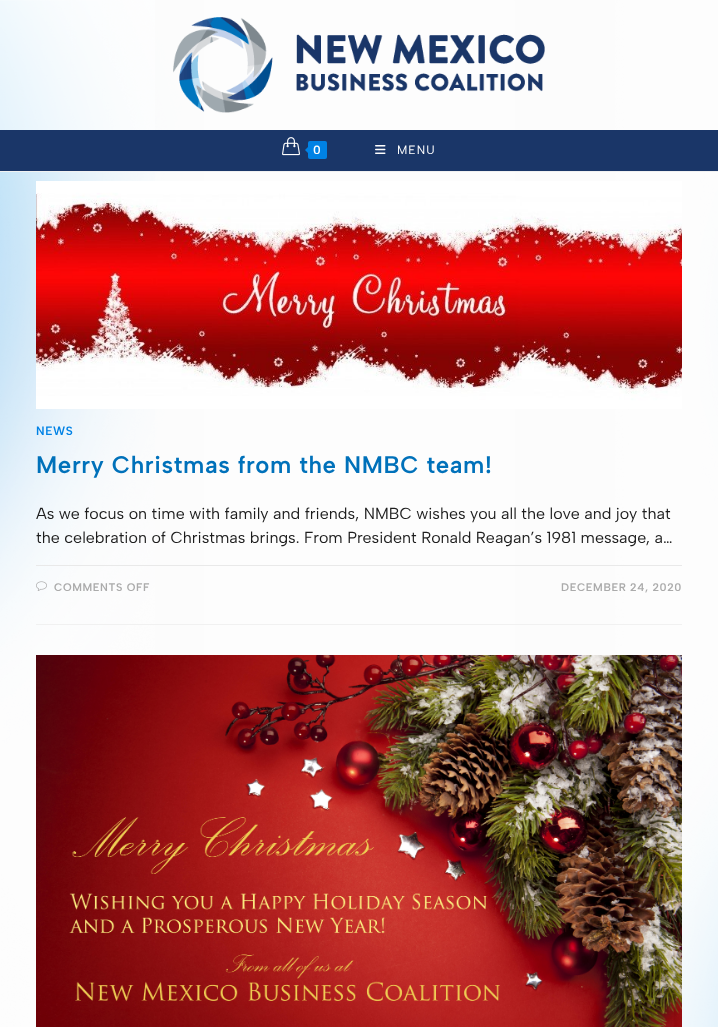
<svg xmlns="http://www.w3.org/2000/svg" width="718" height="1027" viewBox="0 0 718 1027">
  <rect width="100%" height="100%" fill="#fff"/>
  <image x="0" y="0" width="718" height="1027" href="img/1.png"/>
  <path d="M0 171h718v1H0z" fill="#f1f1f1"/>
  <path d="M0 0h155v130H0z" fill="#ffffff80"/>
  <image x="173" y="17" width="372" height="96" href="img/2.png"/>
  <path d="M0 130h718v41H0z" fill="#1a3668"/>
  <image x="282" y="137" width="18" height="19" href="img/3.png"/>
  <rect x="308" y="141" width="19" height="18" rx="2" fill="#0082e5"/>
  <path d="M310 145V155L305 150Z" fill="#0082e5"/>
  <image x="375" y="145" width="11" height="9" href="img/4.png"/>
  <path d="M36 624h646v1H36z" fill="#f1f1f1"/>
  <image x="36" y="181" width="646" height="228" href="img/5.png"/>
  <path d="M36 565h646v1H36z" fill="#e9e9e9"/>
  <image x="36" y="581" width="11" height="10" href="img/6.png"/>
  <image x="36" y="655" width="646" height="372" href="img/7.png"/>
  <text x="313" y="154" font-family="Albert Sans" font-size="12" font-weight="600" letter-spacing="1" fill="#fff">0</text>
  <text x="397" y="154" font-family="Albert Sans" font-size="12" letter-spacing="1" fill="#fff">MENU</text>
  <text x="36" y="435" font-family="Albert Sans" font-size="12" font-weight="600" letter-spacing="0.6" fill="#0082e5">NEWS</text>
  <text x="36" y="473" font-family="Albert Sans" font-size="24" font-weight="600" letter-spacing="0.6" fill="#0071ba">Merry Christmas from the NMBC team!</text>
  <g font-family="Albert Sans" font-size="16" fill="#1d1d1d">
    <text x="36" y="519">As we focus on time with family and friends, NMBC wishes you all the love and joy that</text>
    <text x="36" y="543">the celebration of Christmas brings. From President Ronald Reagan’s 1981 message, a…</text>
  </g>
  <g font-family="Albert Sans" font-size="11" font-weight="600" letter-spacing="0.6" fill="#ababab">
    <text x="54" y="591">COMMENTS OFF</text>
    <text x="561" y="591">DECEMBER 24, 2020</text>
  </g>
</svg>
